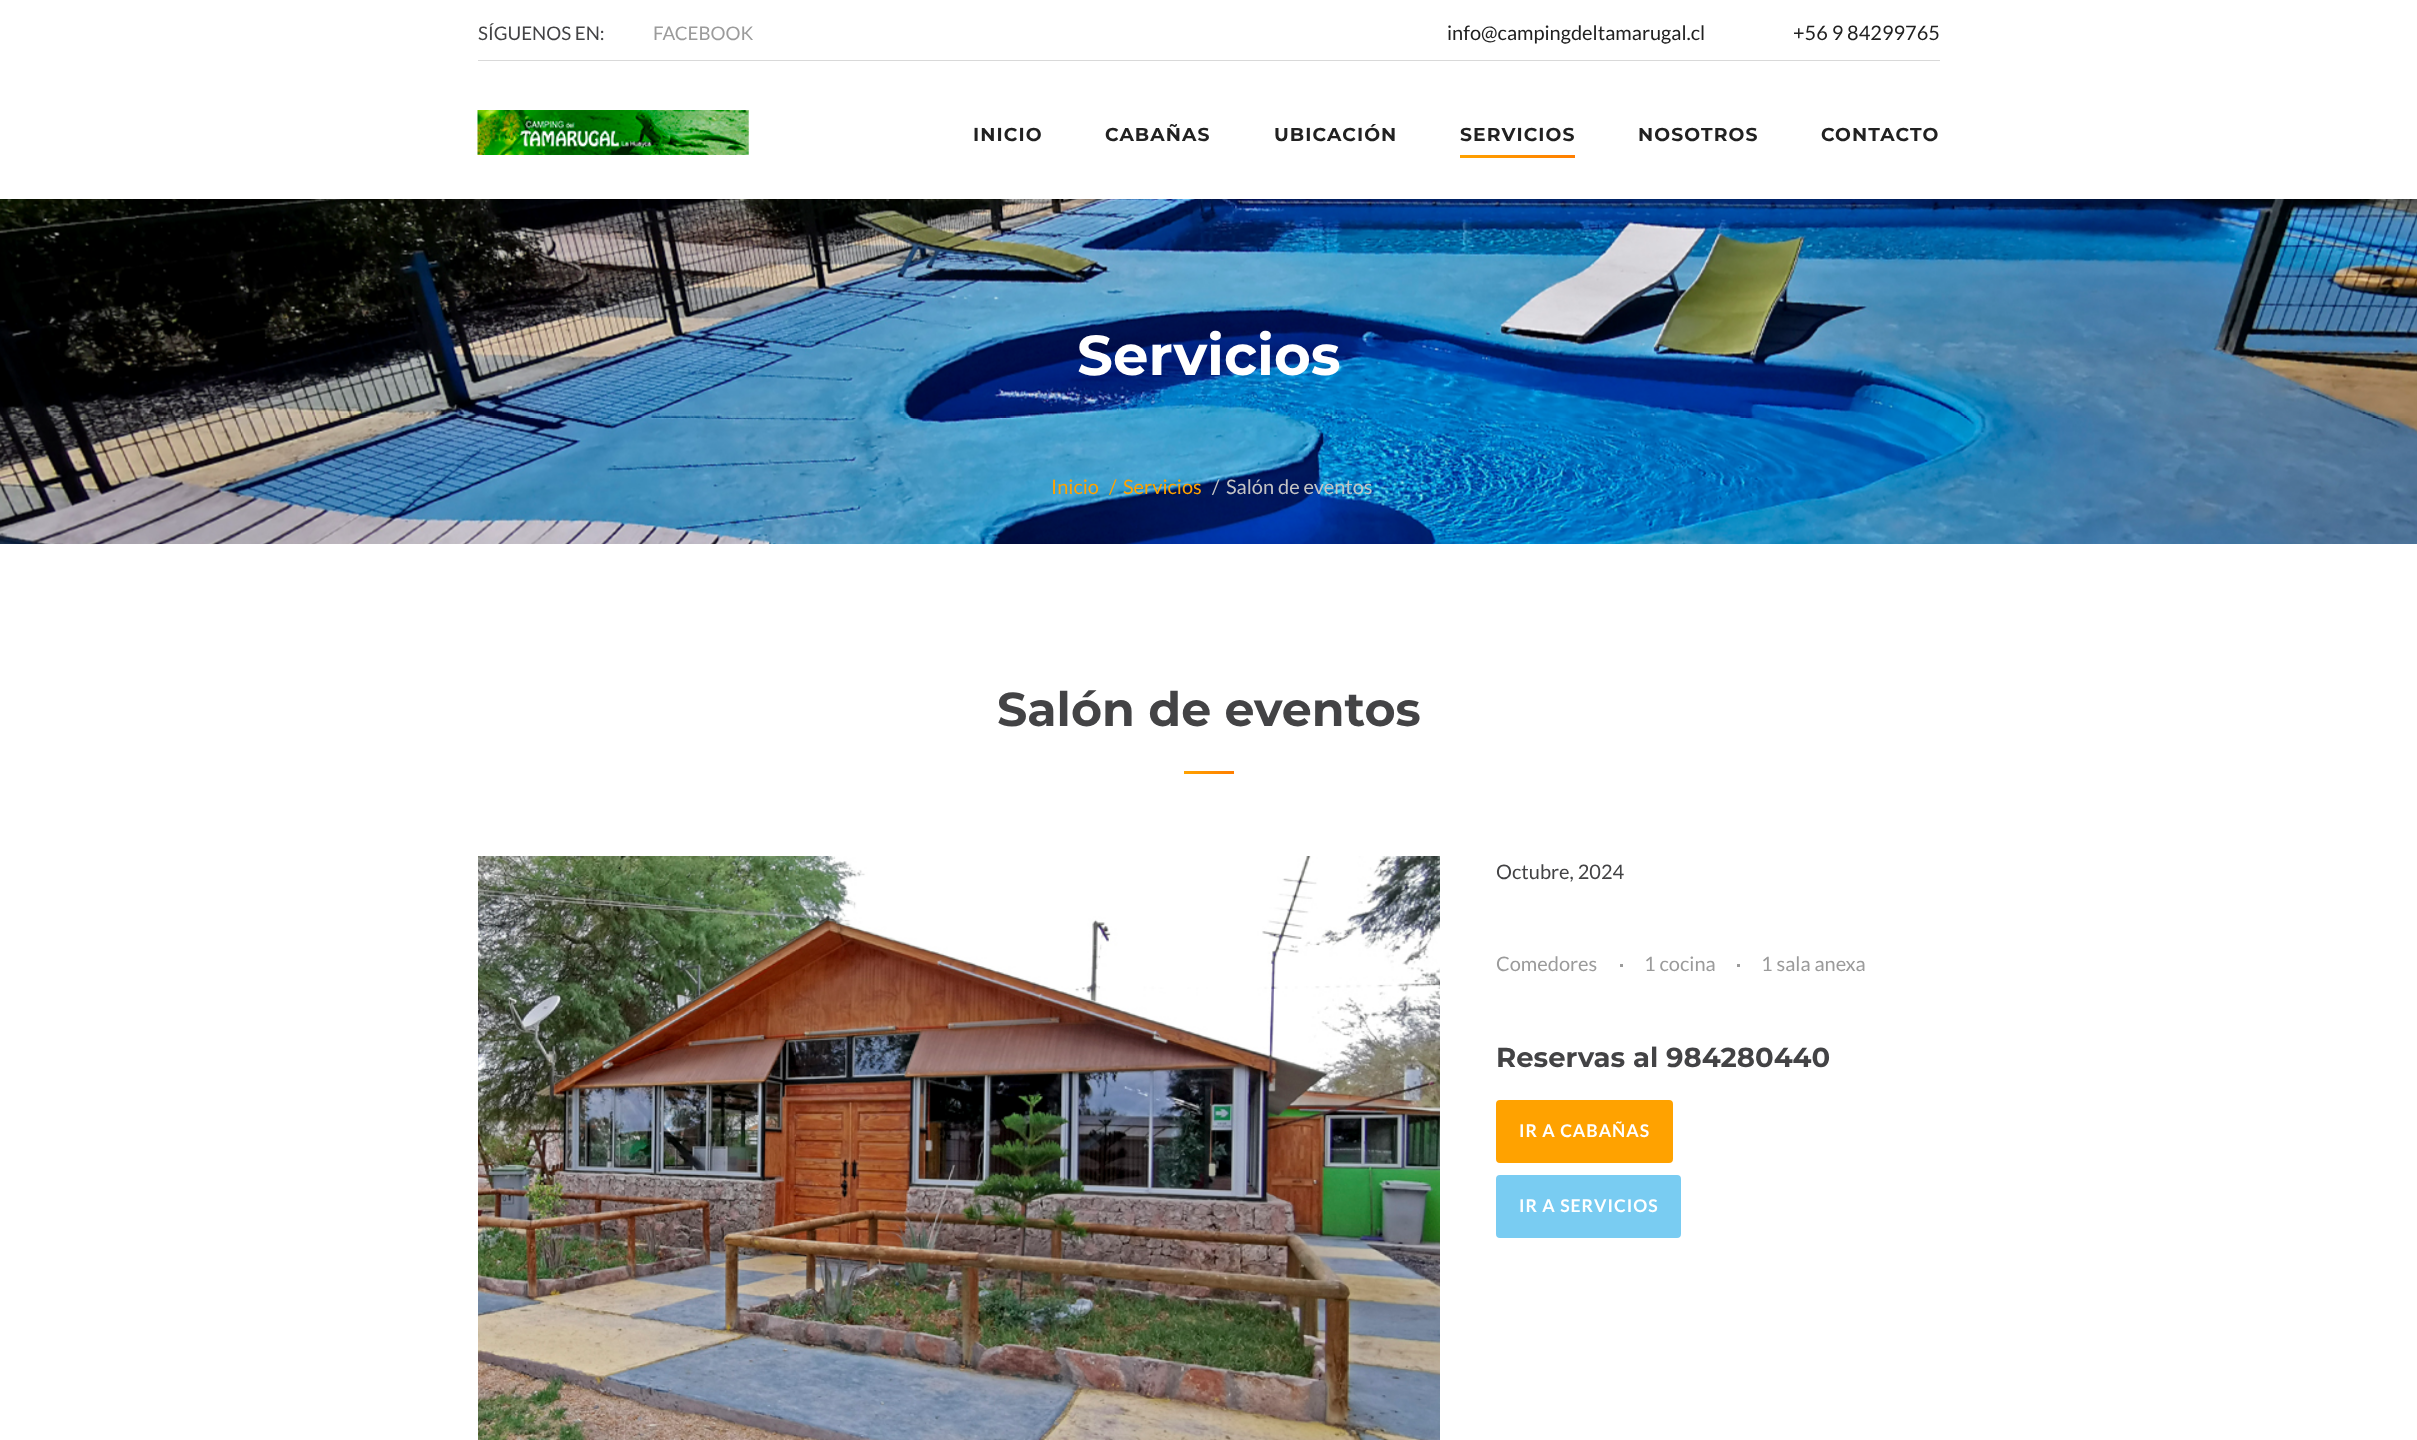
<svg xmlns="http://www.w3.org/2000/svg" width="2417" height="1440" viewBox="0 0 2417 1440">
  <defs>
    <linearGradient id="g1" gradientUnits="userSpaceOnUse" x1="1460" y1="156" x2="1575" y2="156"><stop offset="0" stop-color="#ffa200"/><stop offset="1" stop-color="#ff7e00"/></linearGradient>
    <linearGradient id="g2" gradientUnits="userSpaceOnUse" x1="1184" y1="773" x2="1234" y2="773"><stop offset="0" stop-color="#ffa200"/><stop offset="1" stop-color="#ff7e00"/></linearGradient>
  </defs>
  <rect width="100%" height="100%" fill="#fff"/>
  <path d="M478 60h1462v1H478z" fill="#d9d9d9"/>
  <image x="477" y="110" width="272" height="45" href="img/1.png"/>
  <path d="M1460 155h115v3H1460z" fill="url(#g1)"/>
  <image x="0" y="199" width="2417" height="345" href="img/2.png"/>
  <path d="M1184 771h50v3H1184z" fill="url(#g2)"/>
  <image x="478" y="856" width="962" height="584" href="img/3.png"/>
  <path d="M1620 964h3v3H1620z" fill="#9b9b9b"/>
  <path d="M1737 964h3v3H1737z" fill="#9b9b9b"/>
  <rect x="1497.5" y="1101.5" width="174" height="60" rx="2.5" fill="#ffa200" stroke="#ffa200" stroke-width="3"/>
  <rect x="1497.5" y="1176.5" width="182" height="60" rx="2.5" fill="#79ccf2" stroke="#79ccf2" stroke-width="3"/>
  <text x="478" y="40" font-family="Lato" font-size="18.75" fill="#434345">SÍGUENOS EN:</text>
  <text x="653" y="40" font-family="Lato" font-size="18.75" fill="#9b9b9b">FACEBOOK</text>
  <g font-family="Lato" font-size="20" fill="#212121">
    <text x="1447" y="40">info@campingdeltamarugal.cl</text>
    <text x="1793" y="40">+56 9 84299765</text>
  </g>
  <g font-family="Montserrat" font-size="18.75" font-weight="bold" letter-spacing="1.1" fill="#212121">
    <text x="973" y="141">INICIO</text>
    <text x="1105" y="141">CABAÑAS</text>
    <text x="1274" y="141">UBICACIÓN</text>
    <text x="1460" y="141">SERVICIOS</text>
    <text x="1638" y="141">NOSOTROS</text>
    <text x="1821" y="141">CONTACTO</text>
  </g>
  <text x="1077" y="375" font-family="Montserrat" font-size="56.25" font-weight="bold" fill="#fff">Servicios</text>
  <g font-family="Lato" font-size="20" fill="#ffa200">
    <text x="1051" y="494">Inicio</text>
    <text x="1109" y="494">/</text>
    <text x="1123" y="494">Servicios</text>
  </g>
  <g font-family="Lato" font-size="20" fill="#c4c4c4">
    <text x="1212" y="494">/</text>
    <text x="1226" y="494">Salón de eventos</text>
  </g>
  <text x="997" y="726" font-family="Montserrat" font-size="47.5" font-weight="bold" fill="#434345">Salón de eventos</text>
  <text x="1496" y="879" font-family="Lato" font-size="20" fill="#434345">Octubre, 2024</text>
  <g font-family="Lato" font-size="20" fill="#9b9b9b">
    <text x="1496" y="971">Comedores</text>
    <text x="1644" y="971">1 cocina</text>
    <text x="1761" y="971">1 sala anexa</text>
  </g>
  <text x="1496" y="1067" font-family="Montserrat" font-size="27.5" font-weight="bold" fill="#434345">Reservas al 984280440</text>
  <g font-family="Lato" font-size="17.5" font-weight="bold" letter-spacing="1" fill="#fff">
    <text x="1519" y="1137">IR A CABAÑAS</text>
    <text x="1519" y="1212">IR A SERVICIOS</text>
  </g>
</svg>
